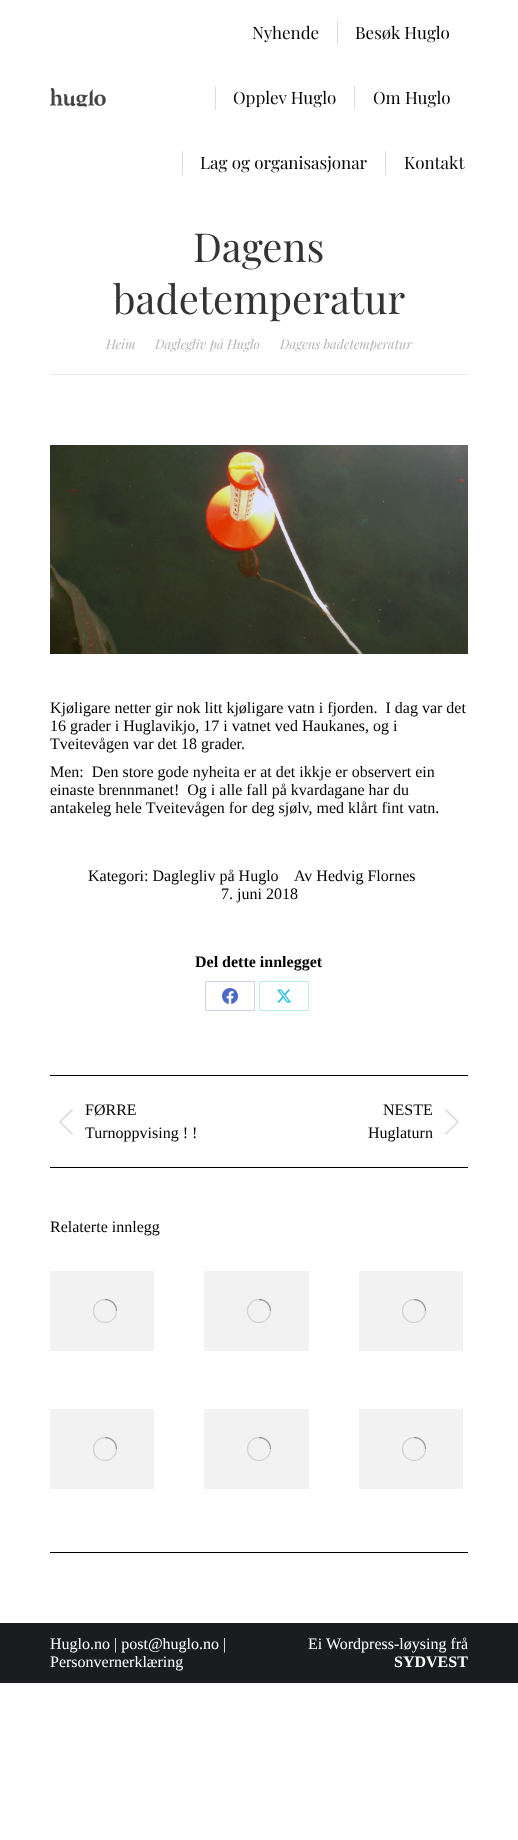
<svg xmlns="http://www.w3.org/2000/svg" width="518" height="1840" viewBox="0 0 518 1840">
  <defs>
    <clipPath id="clip1"><path d="M93 1299h24v24H93z"/></clipPath>
    <clipPath id="clip2"><path d="M247 1299h24v24H247z"/></clipPath>
    <clipPath id="clip3"><path d="M402 1299h24v24H402z"/></clipPath>
    <clipPath id="clip4"><path d="M93 1437h24v24H93z"/></clipPath>
    <clipPath id="clip5"><path d="M247 1437h24v24H247z"/></clipPath>
    <clipPath id="clip6"><path d="M402 1437h24v24H402z"/></clipPath>
  </defs>
  <rect width="100%" height="100%" fill="#fff"/>
  <image x="50" y="88" width="56" height="19" href="img/1.png"/>
  <path d="M337 21h1v24H337z" fill="#dedede"/>
  <path d="M215 86h1v24H215z" fill="#dedede"/>
  <path d="M354 86h1v24H354z" fill="#dedede"/>
  <path d="M182 151h1v24H182z" fill="#dedede"/>
  <path d="M385 151h1v24H385z" fill="#dedede"/>
  <path d="M50 374h418v1H50z" fill="#e9e9e9"/>
  <image x="50" y="445" width="418" height="209" href="img/2.png"/>
  <path d="M205.5 981.5h49v29H205.5z" fill="none" stroke="#c9d2ee"/>
  <image x="222" y="988" width="16" height="16" href="img/3.png"/>
  <path d="M259.5 981.5h49v29H259.5z" fill="none" stroke="#bfecf9"/>
  <image x="277" y="989" width="15" height="14" href="img/4.png"/>
  <path d="M50 1075h418v1H50z" fill="#000"/>
  <path d="M50 1167h418v1H50z" fill="#000"/>
  <image x="59" y="1109" width="14" height="26" href="img/5.png"/>
  <image x="445" y="1109" width="14" height="26" href="img/6.png"/>
  <path d="M50 1552h418v1H50z" fill="#000"/>
  <path d="M50 1271h104v80H50z" fill="#f2f2f2"/>
  <g clip-path="url(#clip1)">
    <circle cx="105" cy="1311" r="11.5" fill="none" stroke="#d1d1d1" stroke-width="1.3"/>
  </g>
  <path d="M116.5 1311C116.5 1304.5 111.5 1299.5 105 1299.5" fill="none" stroke="#00000040" stroke-width="1.3"/>
  <path d="M204 1271h105v80H204z" fill="#f2f2f2"/>
  <g clip-path="url(#clip2)">
    <circle cx="259" cy="1311" r="11.5" fill="none" stroke="#d1d1d1" stroke-width="1.3"/>
  </g>
  <path d="M270.5 1311C270.5 1304.5 265.5 1299.5 259 1299.5" fill="none" stroke="#00000040" stroke-width="1.3"/>
  <path d="M359 1271h104v80H359z" fill="#f2f2f2"/>
  <g clip-path="url(#clip3)">
    <circle cx="414" cy="1311" r="11.5" fill="none" stroke="#d1d1d1" stroke-width="1.3"/>
  </g>
  <path d="M425.5 1311C425.5 1304.5 420.5 1299.5 414 1299.5" fill="none" stroke="#00000040" stroke-width="1.3"/>
  <path d="M50 1409h104v80H50z" fill="#f2f2f2"/>
  <g clip-path="url(#clip4)">
    <circle cx="105" cy="1449" r="11.5" fill="none" stroke="#d1d1d1" stroke-width="1.3"/>
  </g>
  <path d="M116.5 1449C116.5 1442.5 111.5 1437.5 105 1437.5" fill="none" stroke="#00000040" stroke-width="1.3"/>
  <path d="M204 1409h105v80H204z" fill="#f2f2f2"/>
  <g clip-path="url(#clip5)">
    <circle cx="259" cy="1449" r="11.5" fill="none" stroke="#d1d1d1" stroke-width="1.3"/>
  </g>
  <path d="M270.5 1449C270.5 1442.5 265.5 1437.5 259 1437.5" fill="none" stroke="#00000040" stroke-width="1.3"/>
  <path d="M359 1409h104v80H359z" fill="#f2f2f2"/>
  <g clip-path="url(#clip6)">
    <circle cx="414" cy="1449" r="11.5" fill="none" stroke="#d1d1d1" stroke-width="1.3"/>
  </g>
  <path d="M425.5 1449C425.5 1442.5 420.5 1437.5 414 1437.5" fill="none" stroke="#00000040" stroke-width="1.3"/>
  <path d="M0 1623h518v60H0z" fill="#1a1c20"/>
  <g font-family="Playfair Display" font-size="17" fill="#000">
    <text x="252" y="39">Nyhende</text>
    <text x="355" y="39">Besøk Huglo</text>
    <text x="233" y="104">Opplev Huglo</text>
    <text x="373" y="104">Om Huglo</text>
    <text x="200" y="169">Lag og organisasjonar</text>
    <text x="404" y="169">Kontakt</text>
  </g>
  <g font-family="Playfair Display" font-size="40" fill="#333">
    <text x="193" y="262">Dagens</text>
    <text x="113" y="314">badetemperatur</text>
  </g>
  <g font-family="Playfair Display" font-size="13" font-style="italic" fill="#b4b5bb">
    <text x="106" y="349">Heim</text>
    <text x="155" y="349">Daglegliv på Huglo</text>
    <text x="280" y="349">Dagens badetemperatur</text>
  </g>
  <g font-family="Liberation Serif" font-size="16" fill="#000">
    <text x="50" y="713" xml:space="preserve">Kjøligare netter gir nok litt kjøligare vatn i fjorden.  I dag var det</text>
    <text x="50" y="731">16 grader i Huglavikjo, 17 i vatnet ved Haukanes, og i</text>
    <text x="50" y="749">Tveitevågen var det 18 grader.</text>
    <text x="50" y="777" xml:space="preserve">Men:  Den store gode nyheita er at det ikkje er observert ein</text>
    <text x="50" y="795" xml:space="preserve">einaste brennmanet!  Og i alle fall på kvardagane har du</text>
    <text x="50" y="813">antakeleg hele Tveitevågen for deg sjølv, med klårt fint vatn.</text>
    <text x="88" y="881">Kategori: Daglegliv på Huglo</text>
    <text x="294" y="881">Av Hedvig Flornes</text>
    <text x="221" y="899">7. juni 2018</text>
  </g>
  <text x="195" y="967" font-family="Liberation Serif" font-size="16" font-weight="bold" fill="#000">Del dette innlegget</text>
  <g font-family="Liberation Serif" font-size="16" fill="#000">
    <text x="85" y="1115">FØRRE</text>
    <text x="85" y="1138">Turnoppvising ! !</text>
    <text x="383" y="1115">NESTE</text>
    <text x="368" y="1138">Huglaturn</text>
    <text x="50" y="1232">Relaterte innlegg</text>
  </g>
  <g font-family="Liberation Serif" font-size="16" fill="#fff">
    <text x="50" y="1649">Huglo.no | post@huglo.no |</text>
    <text x="50" y="1667">Personvernerklæring</text>
    <text x="308" y="1649">Ei Wordpress-løysing frå</text>
  </g>
  <text x="394" y="1667" font-family="Liberation Serif" font-size="16" font-weight="bold" fill="#fff">SYDVEST</text>
</svg>
